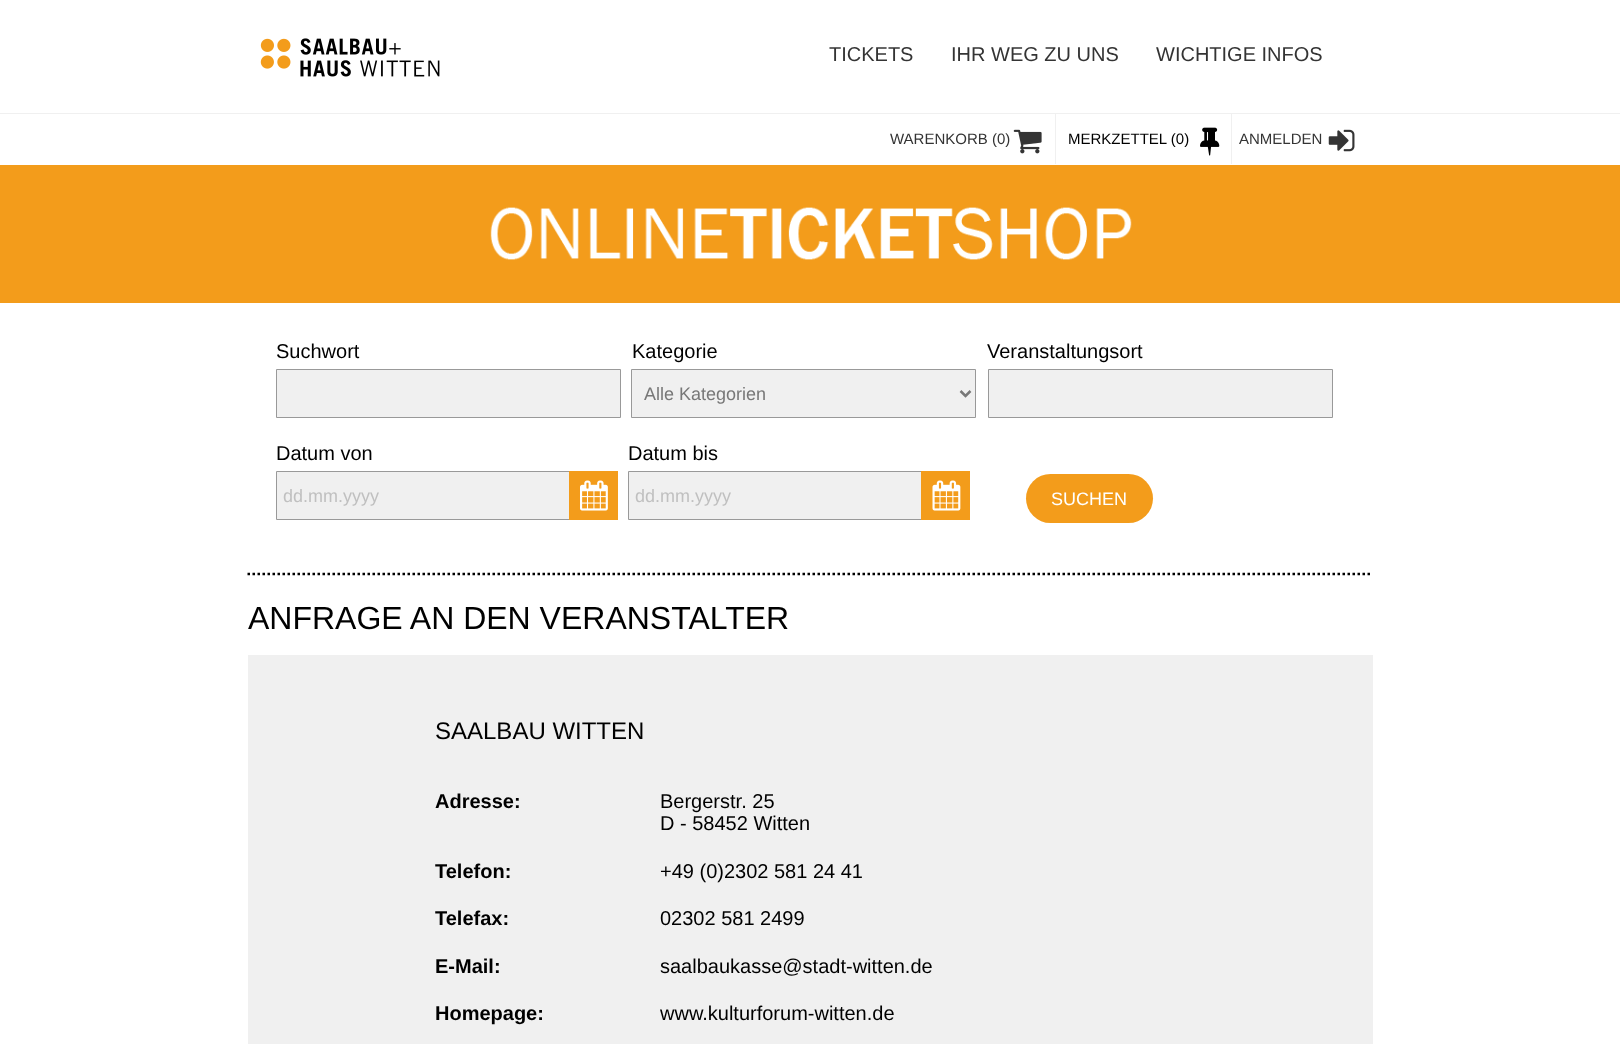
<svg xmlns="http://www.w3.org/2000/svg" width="1620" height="1044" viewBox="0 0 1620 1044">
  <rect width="100%" height="100%" fill="#fff"/>
  <path d="M0 113h1620v1H0z" fill="#f0f0f0"/>
  <image x="260" y="38" width="180" height="39" href="img/1.png"/>
  <path d="M1055 114h1v50H1055z" fill="#f0f0f0"/>
  <image x="1013" y="129" width="29" height="25" href="img/2.png"/>
  <path d="M1231 114h1v50H1231z" fill="#f0f0f0"/>
  <image x="1200" y="127" width="20" height="29" href="img/3.png"/>
  <image x="1328" y="129" width="27" height="23" href="img/4.png"/>
  <path d="M0 165h1620v138H0z" fill="#f39c1b"/>
  <image x="490" y="207" width="642" height="53" href="img/5.png"/>
  <path d="M247.5 574H1372.5" fill="none" stroke="#000" stroke-width="2.5" stroke-dasharray="2.5 2.5"/>
  <path d="M276.5 369.5h344v48H276.5z" fill="#f0f0f0" stroke="#999"/>
  <path d="M631.5 369.5h344v48H631.5z" fill="#f0f0f0" stroke="#999"/>
  <path d="M960.5 391L965.5 396L970.5 391" fill="none" stroke="#787878" stroke-width="2.5"/>
  <path d="M988.5 369.5h344v48H988.5z" fill="#f0f0f0" stroke="#999"/>
  <path d="M277 472h292v47H277z" fill="#f0f0f0"/>
  <path d="M276.5 471.5h341v48H276.5z" fill="none" stroke="#999"/>
  <path d="M569 471h49v49H569z" fill="#f39c1b"/>
  <image x="580" y="480" width="28" height="31" href="img/6.png"/>
  <path d="M629 472h292v47H629z" fill="#f0f0f0"/>
  <path d="M628.5 471.5h341v48H628.5z" fill="none" stroke="#999"/>
  <path d="M921 471h49v49H921z" fill="#f39c1b"/>
  <image x="932" y="480" width="29" height="31" href="img/7.png"/>
  <rect x="1026" y="474" width="127" height="49" rx="24.5" fill="#f39c1b"/>
  <path d="M248 655h1125v389H248z" fill="#f0f0f0"/>
  <g font-family="Liberation Sans" font-size="20" fill="#343434">
    <text x="829" y="61">TICKETS</text>
    <text x="951" y="61">IHR WEG ZU UNS</text>
    <text x="1156" y="61">WICHTIGE INFOS</text>
  </g>
  <text x="890" y="144" font-family="Liberation Sans" font-size="15" fill="#343434">WARENKORB (0)</text>
  <text x="1068" y="144" font-family="Liberation Sans" font-size="15" fill="#000">MERKZETTEL (0)</text>
  <text x="1239" y="144" font-family="Liberation Sans" font-size="15" fill="#343434">ANMELDEN</text>
  <g font-family="Liberation Sans" font-size="20" fill="#000">
    <text x="276" y="358">Suchwort</text>
    <text x="632" y="358">Kategorie</text>
  </g>
  <text x="644" y="400" font-family="Liberation Sans" font-size="18" fill="#787878">Alle Kategorien</text>
  <g font-family="Liberation Sans" font-size="20" fill="#000">
    <text x="987" y="358">Veranstaltungsort</text>
    <text x="276" y="460">Datum von</text>
  </g>
  <text x="283" y="502" font-family="Liberation Sans" font-size="18" fill="#c0c0c0">dd.mm.yyyy</text>
  <text x="628" y="460" font-family="Liberation Sans" font-size="20" fill="#000">Datum bis</text>
  <text x="635" y="502" font-family="Liberation Sans" font-size="18" fill="#c0c0c0">dd.mm.yyyy</text>
  <text x="1051" y="505" font-family="Liberation Sans" font-size="18" fill="#fff">SUCHEN</text>
  <text x="248" y="629" font-family="Liberation Sans" font-size="32" fill="#000">ANFRAGE AN DEN VERANSTALTER</text>
  <text x="435" y="739" font-family="Liberation Sans" font-size="24" fill="#000">SAALBAU WITTEN</text>
  <text x="435" y="808" font-family="Liberation Sans" font-size="20" font-weight="bold" fill="#000">Adresse:</text>
  <g font-family="Liberation Sans" font-size="20" fill="#000">
    <text x="660" y="808">Bergerstr. 25</text>
    <text x="660" y="830">D - 58452 Witten</text>
  </g>
  <text x="435" y="878" font-family="Liberation Sans" font-size="20" font-weight="bold" fill="#000">Telefon:</text>
  <text x="660" y="878" font-family="Liberation Sans" font-size="20" fill="#000">+49 (0)2302 581 24 41</text>
  <text x="435" y="925" font-family="Liberation Sans" font-size="20" font-weight="bold" fill="#000">Telefax:</text>
  <text x="660" y="925" font-family="Liberation Sans" font-size="20" fill="#000">02302 581 2499</text>
  <text x="435" y="973" font-family="Liberation Sans" font-size="20" font-weight="bold" fill="#000">E-Mail:</text>
  <text x="660" y="973" font-family="Liberation Sans" font-size="20" fill="#000">saalbaukasse@stadt-witten.de</text>
  <text x="435" y="1020" font-family="Liberation Sans" font-size="20" font-weight="bold" fill="#000">Homepage:</text>
  <text x="660" y="1020" font-family="Liberation Sans" font-size="20" fill="#000">www.kulturforum-witten.de</text>
</svg>
